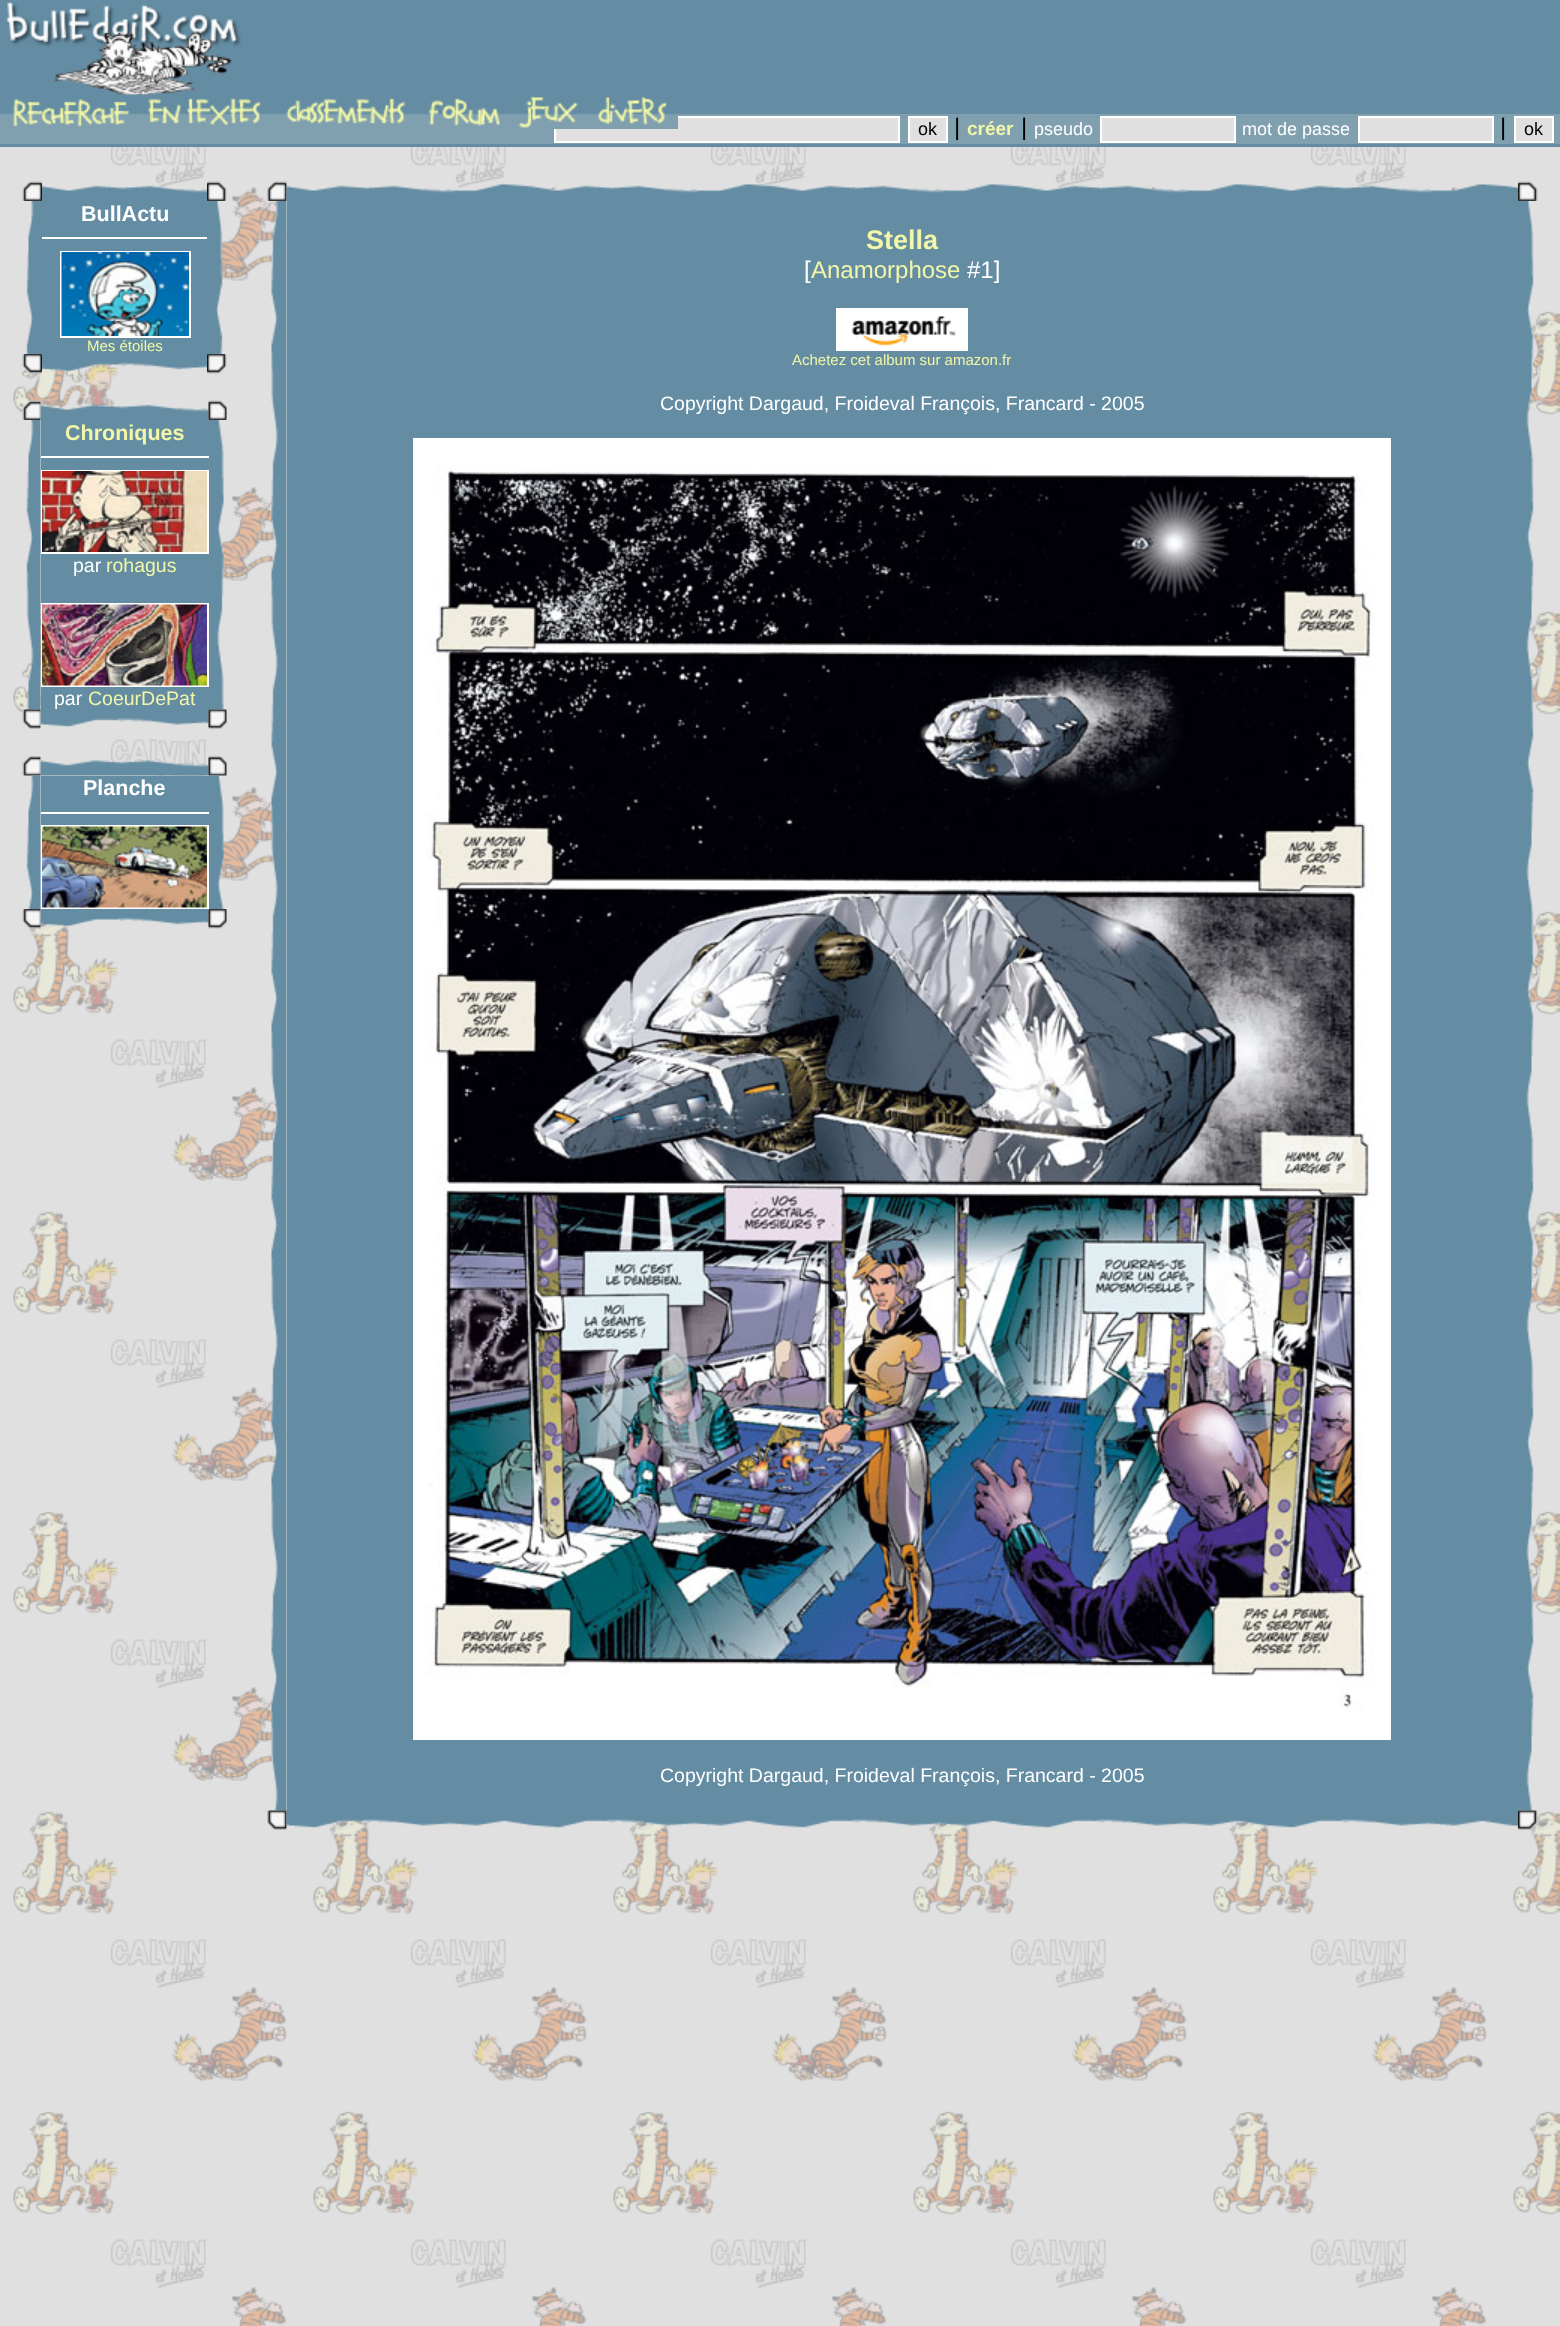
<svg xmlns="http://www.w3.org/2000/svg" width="1560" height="2326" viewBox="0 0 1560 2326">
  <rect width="100%" height="100%" fill="#e0e0e0"/>
  <image x="13" y="147" width="1547" height="2179" href="img/1.png"/>
  <path d="M0 0h1560v111H0z" fill="#648da3"/>
  <image x="6" y="2" width="235" height="93" href="img/2.png"/>
  <path d="M0 114h1560v30H0z" fill="#80a0b0"/>
  <image x="0" y="94" width="138" height="33" href="img/3.png"/>
  <image x="138" y="94" width="135" height="32" href="img/4.png"/>
  <image x="273" y="98" width="144" height="26" href="img/5.png"/>
  <image x="417" y="98" width="93" height="29" href="img/6.png"/>
  <path d="M555 117h344v25H555z" fill="#e0e0e0" stroke="#fff" stroke-width="2"/>
  <image x="510" y="96" width="78" height="33" href="img/7.png"/>
  <image x="588" y="97" width="90" height="32" href="img/8.png"/>
  <path d="M678 111h882v3H678z" fill="#648da3"/>
  <path d="M0 144h1560v3H0z" fill="#648da3"/>
  <path d="M909 117h38v25H909z" fill="#e0e0e0" stroke="#fff" stroke-width="2"/>
  <path d="M1101 117h134v25H1101z" fill="#e0e0e0" stroke="#fff" stroke-width="2"/>
  <path d="M1359 117h134v25H1359z" fill="#e0e0e0" stroke="#fff" stroke-width="2"/>
  <path d="M1515 117h38v25H1515z" fill="#e0e0e0" stroke="#fff" stroke-width="2"/>
  <image x="22" y="181" width="20" height="20" href="img/9.png"/>
  <image x="42" y="185" width="165" height="16" href="img/10.png"/>
  <image x="207" y="181" width="20" height="20" href="img/11.png"/>
  <image x="26" y="201" width="16" height="153" href="img/12.png"/>
  <path d="M42 201h165v153H42z" fill="#648da3"/>
  <path d="M42 237h165v2H42z" fill="#fff"/>
  <path d="M61 252h129v85H61z" fill="none" stroke="#fff" stroke-width="2"/>
  <image x="61" y="252" width="128" height="84" href="img/13.png"/>
  <image x="207" y="201" width="16" height="153" href="img/14.png"/>
  <image x="22" y="354" width="20" height="20" href="img/15.png"/>
  <image x="42" y="354" width="165" height="18" href="img/16.png"/>
  <image x="207" y="354" width="20" height="20" href="img/17.png"/>
  <image x="22" y="400" width="19" height="20" href="img/18.png"/>
  <image x="40" y="404" width="169" height="16" href="img/19.png"/>
  <image x="208" y="400" width="19" height="20" href="img/20.png"/>
  <image x="26" y="420" width="15" height="290" href="img/21.png"/>
  <path d="M41 420h168v290H41z" fill="#648da3"/>
  <path d="M41 456h168v2H41z" fill="#fff"/>
  <path d="M42 471h166v82H42z" fill="none" stroke="#fff" stroke-width="2"/>
  <image x="42" y="471" width="165" height="81" href="img/22.png"/>
  <path d="M42 604h166v82H42z" fill="none" stroke="#fff" stroke-width="2"/>
  <image x="42" y="604" width="165" height="82" href="img/23.png"/>
  <image x="209" y="420" width="15" height="290" href="img/24.png"/>
  <image x="22" y="709" width="19" height="20" href="img/25.png"/>
  <image x="40" y="709" width="169" height="19" href="img/26.png"/>
  <image x="208" y="709" width="19" height="20" href="img/27.png"/>
  <image x="22" y="756" width="19" height="20" href="img/28.png"/>
  <image x="40" y="760" width="169" height="16" href="img/29.png"/>
  <image x="208" y="756" width="19" height="20" href="img/30.png"/>
  <image x="26" y="775" width="15" height="134" href="img/31.png"/>
  <path d="M41 776h168v49H41z" fill="#648da3"/>
  <image x="208" y="775" width="16" height="134" href="img/33.png"/>
  <path d="M41 812h168v2H41z" fill="#fff"/>
  <path d="M42 826h166v82H42z" fill="none" stroke="#fff" stroke-width="2"/>
  <image x="42" y="826" width="165" height="82" href="img/32.png"/>
  <image x="22" y="909" width="19" height="20" href="img/34.png"/>
  <image x="40" y="909" width="169" height="18" href="img/35.png"/>
  <image x="208" y="909" width="19" height="20" href="img/36.png"/>
  <image x="267" y="181" width="20" height="20" href="img/37.png"/>
  <image x="286" y="183" width="1232" height="18" href="img/38.png"/>
  <image x="1518" y="181" width="20" height="20" href="img/39.png"/>
  <image x="271" y="201" width="16" height="1610" href="img/40.png"/>
  <path d="M287 201h1231v1610H287z" fill="#648da3"/>
  <path d="M837 309h130v41H837z" fill="none" stroke="#fff" stroke-width="2"/>
  <image x="838" y="310" width="128" height="39" href="img/41.png"/>
  <path d="M414 439h976v1300H414z" fill="none" stroke="#fff" stroke-width="2"/>
  <image x="415" y="440" width="974" height="1298" href="img/42.png"/>
  <image x="1518" y="201" width="16" height="1610" href="img/43.png"/>
  <image x="267" y="1810" width="20" height="20" href="img/44.png"/>
  <image x="286" y="1810" width="1232" height="19" href="img/45.png"/>
  <image x="1518" y="1810" width="20" height="20" href="img/46.png"/>
  <text x="918" y="135" font-family="Liberation Sans" font-size="18" fill="#000">ok</text>
  <text x="954" y="135" font-family="Liberation Sans" font-size="24" fill="#000">|</text>
  <text x="967" y="135" font-family="Liberation Sans" font-size="19" font-weight="bold" fill="#f1f6a8">créer</text>
  <text x="1021" y="135" font-family="Liberation Sans" font-size="24" fill="#000">|</text>
  <g font-family="Liberation Sans" font-size="18" fill="#fff">
    <text x="1034" y="135">pseudo</text>
    <text x="1242" y="135">mot de passe</text>
  </g>
  <text x="1500" y="135" font-family="Liberation Sans" font-size="24" fill="#000">|</text>
  <text x="1524" y="135" font-family="Liberation Sans" font-size="18" fill="#000">ok</text>
  <text x="81" y="221" font-family="Liberation Sans" font-size="21.5" font-weight="bold" fill="#fff">BullActu</text>
  <text x="87" y="351" font-family="Liberation Sans" font-size="15" fill="#f1f6a8">Mes étoiles</text>
  <text x="65" y="440" font-family="Liberation Sans" font-size="21.5" font-weight="bold" fill="#f1f6a8">Chroniques</text>
  <text x="73" y="572" font-family="Liberation Sans" font-size="19.5" fill="#fff">par</text>
  <text x="106" y="572" font-family="Liberation Sans" font-size="19.5" fill="#f1f6a8">rohagus</text>
  <text x="54" y="705" font-family="Liberation Sans" font-size="19.5" fill="#fff">par</text>
  <text x="88" y="705" font-family="Liberation Sans" font-size="19.5" fill="#f1f6a8">CoeurDePat</text>
  <text x="83" y="795" font-family="Liberation Sans" font-size="21.5" font-weight="bold" fill="#fff">Planche</text>
  <text x="866" y="249" font-family="Liberation Sans" font-size="27" font-weight="bold" fill="#f1f6a8">Stella</text>
  <text x="804" y="278" font-family="Liberation Sans" font-size="24" fill="#fff">[</text>
  <text x="811" y="278" font-family="Liberation Sans" font-size="24" fill="#f1f6a8">Anamorphose</text>
  <text x="967" y="278" font-family="Liberation Sans" font-size="24" fill="#fff">#1]</text>
  <text x="792" y="365" font-family="Liberation Sans" font-size="15" fill="#f1f6a8">Achetez cet album sur amazon.fr</text>
  <g font-family="Liberation Sans" font-size="19.5" fill="#fff">
    <text x="660" y="410">Copyright Dargaud, Froideval François, Francard - 2005</text>
    <text x="660" y="1782">Copyright Dargaud, Froideval François, Francard - 2005</text>
  </g>
</svg>
